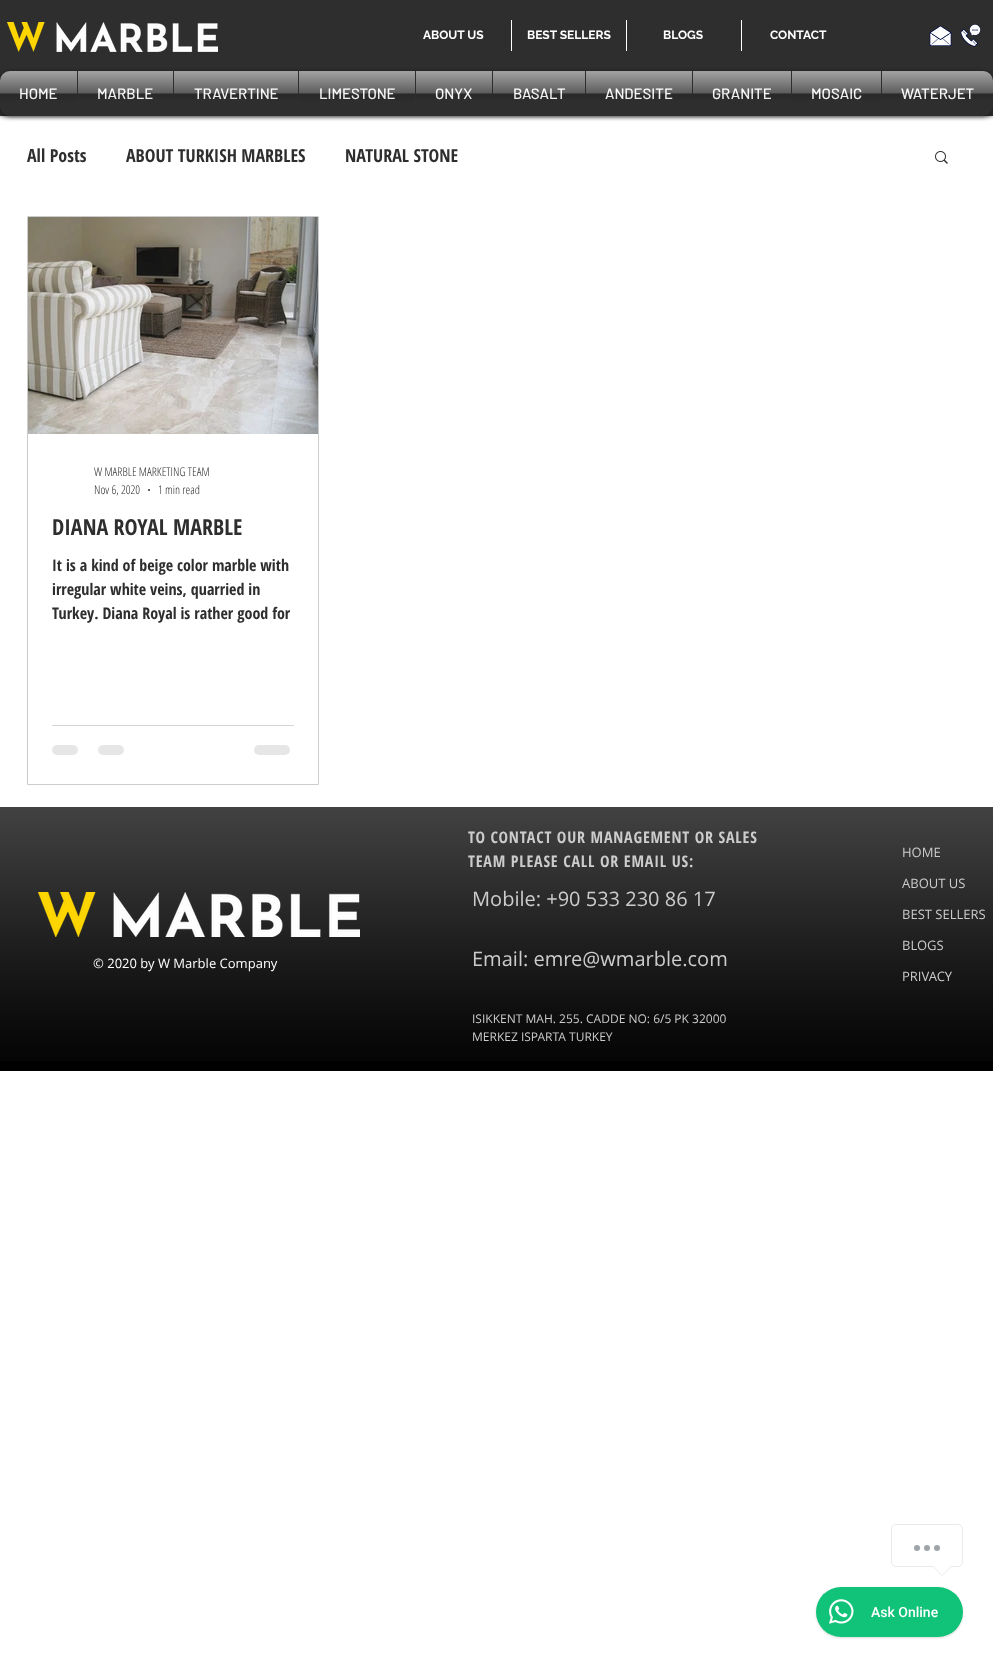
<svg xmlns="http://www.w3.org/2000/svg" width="993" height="1667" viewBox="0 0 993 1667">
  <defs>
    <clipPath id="clip1"><path d="M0 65H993V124H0ZM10 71H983C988.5 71 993 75.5 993 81V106C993 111.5 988.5 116 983 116H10C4.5 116 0 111.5 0 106V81C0 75.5 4.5 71 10 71Z" clip-rule="evenodd"/></clipPath>
    <clipPath id="clip2"><path d="M52 553h242v72H52z"/></clipPath>
  </defs>
  <rect width="100%" height="100%" fill="#fff"/>
  <path d="M0 0h993v116H0z" fill="#00000080" filter="blur(2.5px)"/>
  <path d="M0 0h993v116H0z" fill="#2f2e2e"/>
  <image x="7" y="22" width="211" height="30" href="img/1.png"/>
  <path d="M511 20h1v31H511z" fill="#fff"/>
  <path d="M626 20h1v31H626z" fill="#fff"/>
  <path d="M741 20h1v31H741z" fill="#fff"/>
  <image x="929" y="25" width="23" height="21" href="img/2.png"/>
  <image x="960" y="24" width="21" height="23" href="img/3.png"/>
  <g clip-path="url(#clip1)">
    <rect y="72" width="993" height="45" rx="10" fill="#00000099" filter="blur(2px)"/>
  </g>
  <image x="0" y="71" width="993" height="23" href="img/4.png"/>
  <path d="M77 71h1v23H77z" fill="#2f2e2e"/>
  <path d="M173 71h1v23H173z" fill="#2f2e2e"/>
  <path d="M298 71h1v23H298z" fill="#2f2e2e"/>
  <path d="M415 71h1v23H415z" fill="#2f2e2e"/>
  <path d="M492 71h1v23H492z" fill="#2f2e2e"/>
  <path d="M585 71h1v23H585z" fill="#2f2e2e"/>
  <path d="M692 71h1v23H692z" fill="#2f2e2e"/>
  <path d="M791 71h1v23H791z" fill="#2f2e2e"/>
  <path d="M881 71h1v23H881z" fill="#2f2e2e"/>
  <image x="935" y="151" width="13" height="13" href="img/15.png"/>
  <path d="M27.5 216.5h291v568H27.5z" fill="none" stroke="#ccc"/>
  <image x="28" y="217" width="290" height="217" href="img/16.png"/>
  <circle cx="149" cy="490" r="1" fill="#2f2e2e"/>
  <path d="M52 725h242v1H52z" fill="#d5d5d5"/>
  <rect x="52" y="745" width="26" height="10" rx="5" fill="#e6e6e6"/>
  <rect x="98" y="745" width="26" height="10" rx="5" fill="#e6e6e6"/>
  <rect x="254" y="745" width="36" height="10" rx="5" fill="#e6e6e6"/>
  <path d="M0 807h993v264H0z" fill="#000"/>
  <image x="0" y="807" width="993" height="254" href="img/17.png"/>
  <image x="38" y="892" width="322" height="45" href="img/18.png"/>
  <rect x="891.5" y="1524.5" width="71" height="42" rx="4.5" fill="none" stroke="#e9e9e9"/>
  <circle cx="917" cy="1548" r="3" fill="#9fa4a8"/>
  <circle cx="927" cy="1548" r="3" fill="#9fa4a8"/>
  <circle cx="937" cy="1548" r="3" fill="#9fa4a8"/>
  <path d="M932 1566H952L942 1576Z" fill="#e9e9e9"/>
  <path d="M933 1566H951L942 1575Z" fill="#fff"/>
  <rect x="816" y="1588" width="147" height="50" rx="25" fill="#00000026" filter="blur(1px)"/>
  <rect x="816" y="1587" width="147" height="50" rx="25" fill="#10c379"/>
  <image x="829" y="1599" width="25" height="25" href="img/19.png"/>
  <g font-family="Raleway" font-size="12" font-weight="bold" fill="#fff">
    <text x="423" y="39">ABOUT US</text>
    <text x="527" y="39">BEST SELLERS</text>
    <text x="663" y="39">BLOGS</text>
    <text x="770" y="39">CONTACT</text>
  </g>
  <text x="19" y="99" font-family="Barlow" font-size="15" font-weight="500" fill="#fff">HOME</text>
  <image x="0" y="71" width="77" height="29" href="img/5.png"/>
  <text x="97" y="99" font-family="Barlow" font-size="15" font-weight="500" fill="#fff">MARBLE</text>
  <image x="78" y="71" width="95" height="28" href="img/6.png"/>
  <text x="194" y="99" font-family="Barlow" font-size="15" font-weight="500" fill="#fff">TRAVERTINE</text>
  <image x="174" y="71" width="124" height="28" href="img/7.png"/>
  <text x="319" y="99" font-family="Barlow" font-size="15" font-weight="500" fill="#fff">LIMESTONE</text>
  <image x="299" y="71" width="116" height="29" href="img/8.png"/>
  <text x="435" y="99" font-family="Barlow" font-size="15" font-weight="500" fill="#fff">ONYX</text>
  <image x="416" y="71" width="76" height="28" href="img/9.png"/>
  <text x="513" y="99" font-family="Barlow" font-size="15" font-weight="500" fill="#fff">BASALT</text>
  <image x="493" y="71" width="92" height="28" href="img/10.png"/>
  <text x="605" y="99" font-family="Barlow" font-size="15" font-weight="500" fill="#fff">ANDESITE</text>
  <image x="586" y="71" width="106" height="28" href="img/11.png"/>
  <text x="712" y="99" font-family="Barlow" font-size="15" font-weight="500" fill="#fff">GRANITE</text>
  <image x="693" y="71" width="98" height="28" href="img/12.png"/>
  <text x="811" y="99" font-family="Barlow" font-size="15" font-weight="500" fill="#fff">MOSAIC</text>
  <image x="792" y="71" width="89" height="29" href="img/13.png"/>
  <text x="901" y="99" font-family="Barlow" font-size="15" font-weight="500" fill="#fff">WATERJET</text>
  <image x="882" y="71" width="111" height="28" href="img/14.png"/>
  <g font-family="Open Sans Condensed" font-size="18" font-weight="bold" fill="#2f2e2e">
    <text x="27" y="162">All Posts</text>
    <text x="126" y="162">ABOUT TURKISH MARBLES</text>
    <text x="345" y="162">NATURAL STONE</text>
  </g>
  <g font-family="Open Sans Condensed" font-size="12" font-weight="300" fill="#2f2e2e">
    <text x="94" y="476">W MARBLE MARKETING TEAM</text>
    <text x="94" y="494">Nov 6, 2020</text>
    <text x="158" y="494">1 min read</text>
  </g>
  <text x="52" y="535" font-family="Open Sans Condensed" font-size="22" font-weight="bold" fill="#2f2e2e">DIANA ROYAL MARBLE</text>
  <g font-family="Open Sans Condensed" font-size="16" font-weight="bold" fill="#2f2e2e">
    <text x="52" y="571">It is a kind of beige color marble with</text>
    <text x="52" y="595">irregular white veins, quarried in</text>
  </g>
  <g clip-path="url(#clip2)">
    <text x="52" y="619" font-family="Open Sans Condensed" font-size="16" font-weight="bold" fill="#2f2e2e">Turkey. Diana Royal is rather good for</text>
  </g>
  <g font-family="Open Sans Condensed" font-size="16" font-weight="bold" letter-spacing="0.8" fill="#ccc">
    <text x="468" y="843">TO CONTACT OUR MANAGEMENT OR SALES</text>
    <text x="468" y="867">TEAM PLEASE CALL OR EMAIL US:</text>
  </g>
  <g font-family="Open Sans" font-size="13" fill="#ccc">
    <text x="902" y="857">HOME</text>
    <text x="902" y="888">ABOUT US</text>
    <text x="902" y="919">BEST SELLERS</text>
    <text x="902" y="950">BLOGS</text>
    <text x="902" y="981">PRIVACY</text>
  </g>
  <text x="472" y="906" font-family="Open Sans" font-size="20" fill="#ccc">Mobile: +90 533 230 86 17</text>
  <text x="93" y="968" font-family="Open Sans" font-size="13" fill="#fff">© 2020 by W Marble Company</text>
  <text x="472" y="966" font-family="Open Sans" font-size="20" fill="#ccc">Email: emre@wmarble.com</text>
  <g font-family="Open Sans" font-size="12" fill="#ccc">
    <text x="472" y="1023">ISIKKENT MAH. 255. CADDE NO: 6/5 PK 32000</text>
    <text x="472" y="1041">MERKEZ ISPARTA TURKEY</text>
  </g>
  <text x="871" y="1617" font-family="Roboto" font-size="14" font-weight="500" fill="#fff">Ask Online</text>
</svg>
